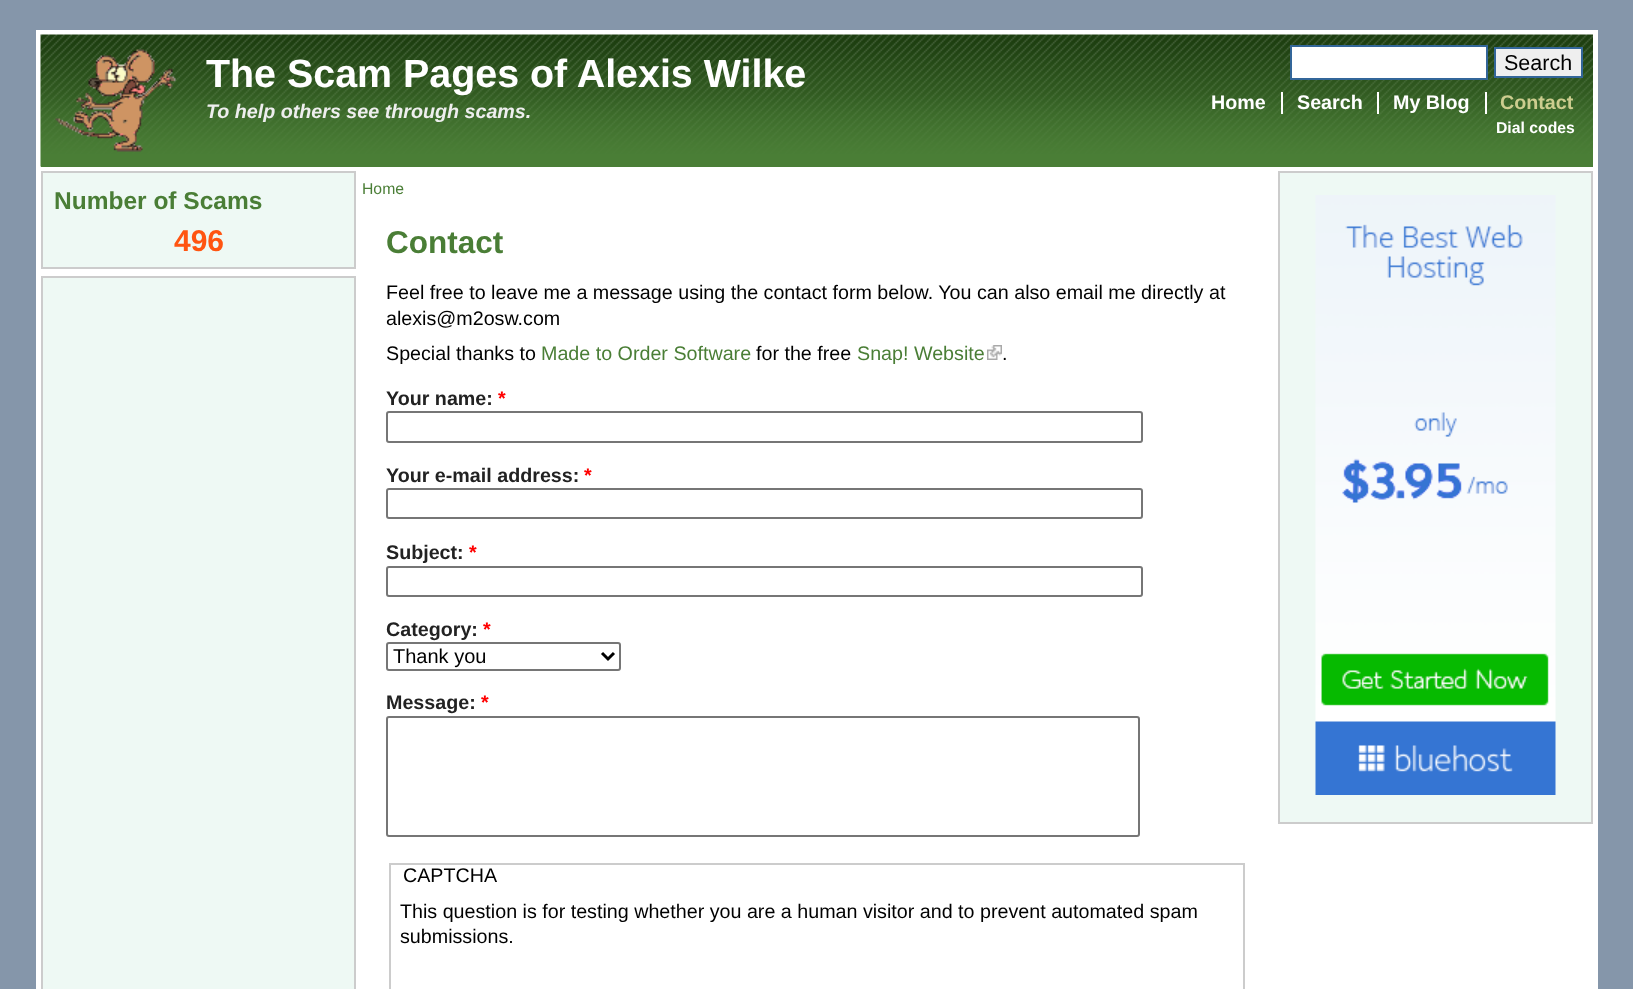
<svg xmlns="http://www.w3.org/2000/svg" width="1633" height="989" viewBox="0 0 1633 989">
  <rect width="100%" height="100%" fill="#8596aa"/>
  <path d="M36 30h1562v959H36z" fill="#fff"/>
  <path d="M41 166h1552v1H41z" fill="#4a7e36"/>
  <image x="40" y="34" width="1553" height="133" href="img/1.png"/>
  <image x="55" y="49" width="121" height="103" href="img/2.png"/>
  <path d="M1291 46h196v33H1291z" fill="#fff" stroke="#369" stroke-width="2"/>
  <path d="M1495 48h87v29H1495z" fill="#efefef" stroke="#369" stroke-width="2"/>
  <path d="M1281 92h2v22H1281z" fill="#fff"/>
  <path d="M1377 92h2v22H1377z" fill="#fff"/>
  <path d="M1485 92h2v22H1485z" fill="#fff"/>
  <path d="M42 172h313v96H42z" fill="#eef9f4" stroke="#ccc" stroke-width="2"/>
  <path d="M42 277h313v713H42z" fill="#eef9f4" stroke="#ccc" stroke-width="2"/>
  <image x="987" y="345" width="15" height="15" href="img/3.png"/>
  <rect x="387" y="412" width="755" height="30" rx="2" fill="none" stroke="#767676" stroke-width="2"/>
  <rect x="387" y="489" width="755" height="29" rx="2" fill="none" stroke="#767676" stroke-width="2"/>
  <rect x="387" y="567" width="755" height="29" rx="2" fill="none" stroke="#767676" stroke-width="2"/>
  <rect x="387" y="643" width="233" height="27" rx="2" fill="none" stroke="#767676" stroke-width="2"/>
  <path d="M602 653L608 659L614 653" fill="none" stroke="#000" stroke-width="3"/>
  <rect x="387" y="717" width="752" height="119" rx="2" fill="none" stroke="#767676" stroke-width="2"/>
  <path d="M390 864h854v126H390z" fill="none" stroke="#ccc" stroke-width="2"/>
  <path d="M1279 172h313v651H1279z" fill="#eef9f4" stroke="#ccc" stroke-width="2"/>
  <image x="1315" y="195" width="241" height="600" href="img/4.png"/>
  <text x="206" y="87" font-family="Liberation Sans" font-size="39.4" font-weight="bold" fill="#fff">The Scam Pages of Alexis Wilke</text>
  <text x="206" y="118" font-family="Liberation Sans" font-size="19.7" font-weight="bold" font-style="italic" fill="#eee">To help others see through scams.</text>
  <text x="1504" y="70" font-family="Liberation Sans" font-size="21.5" fill="#000">Search</text>
  <g font-family="Liberation Sans" font-size="19.7" font-weight="bold" fill="#fff">
    <text x="1211" y="109">Home</text>
    <text x="1297" y="109">Search</text>
    <text x="1393" y="109">My Blog</text>
  </g>
  <text x="1500" y="109" font-family="Liberation Sans" font-size="19.7" font-weight="bold" fill="#cdcd8f">Contact</text>
  <text x="1496" y="133" font-family="Liberation Sans" font-size="15.75" font-weight="bold" fill="#fff">Dial codes</text>
  <text x="54" y="209" font-family="Liberation Sans" font-size="24.5" font-weight="bold" fill="#4a7e36">Number of Scams</text>
  <text x="174" y="251" font-family="Liberation Sans" font-size="30" font-weight="bold" fill="#f51">496</text>
  <text x="362" y="194" font-family="Liberation Sans" font-size="15.75" fill="#4a7e36">Home</text>
  <text x="386" y="253" font-family="Liberation Sans" font-size="31.5" font-weight="bold" fill="#4a7e36">Contact</text>
  <g font-family="Liberation Sans" font-size="19.7" fill="#000">
    <text x="386" y="299">Feel free to leave me a message using the contact form below. You can also email me directly at</text>
    <text x="386" y="325">alexis@m2osw.com</text>
    <text x="386" y="360">Special thanks to</text>
  </g>
  <text x="541" y="360" font-family="Liberation Sans" font-size="19.7" fill="#4a7e36">Made to Order Software</text>
  <text x="756" y="360" font-family="Liberation Sans" font-size="19.7" fill="#000">for the free</text>
  <text x="857" y="360" font-family="Liberation Sans" font-size="19.7" fill="#4a7e36">Snap! Website</text>
  <text x="1002" y="360" font-family="Liberation Sans" font-size="19.7" fill="#000">.</text>
  <text x="386" y="405" font-family="Liberation Sans" font-size="19.7" font-weight="bold" fill="#222">Your name:</text>
  <text x="498" y="405" font-family="Liberation Sans" font-size="19.7" font-weight="bold" fill="#f00">*</text>
  <text x="386" y="482" font-family="Liberation Sans" font-size="19.7" font-weight="bold" fill="#222">Your e-mail address:</text>
  <text x="584" y="482" font-family="Liberation Sans" font-size="19.7" font-weight="bold" fill="#f00">*</text>
  <text x="386" y="559" font-family="Liberation Sans" font-size="19.7" font-weight="bold" fill="#222">Subject:</text>
  <text x="469" y="559" font-family="Liberation Sans" font-size="19.7" font-weight="bold" fill="#f00">*</text>
  <text x="386" y="636" font-family="Liberation Sans" font-size="19.7" font-weight="bold" fill="#222">Category:</text>
  <text x="483" y="636" font-family="Liberation Sans" font-size="19.7" font-weight="bold" fill="#f00">*</text>
  <text x="393" y="663" font-family="Liberation Sans" font-size="20" fill="#000">Thank you</text>
  <text x="386" y="709" font-family="Liberation Sans" font-size="19.7" font-weight="bold" fill="#222">Message:</text>
  <text x="481" y="709" font-family="Liberation Sans" font-size="19.7" font-weight="bold" fill="#f00">*</text>
  <g font-family="Liberation Sans" font-size="19.7" fill="#000">
    <text x="403" y="882">CAPTCHA</text>
    <text x="400" y="918">This question is for testing whether you are a human visitor and to prevent automated spam</text>
    <text x="400" y="943">submissions.</text>
  </g>
</svg>
